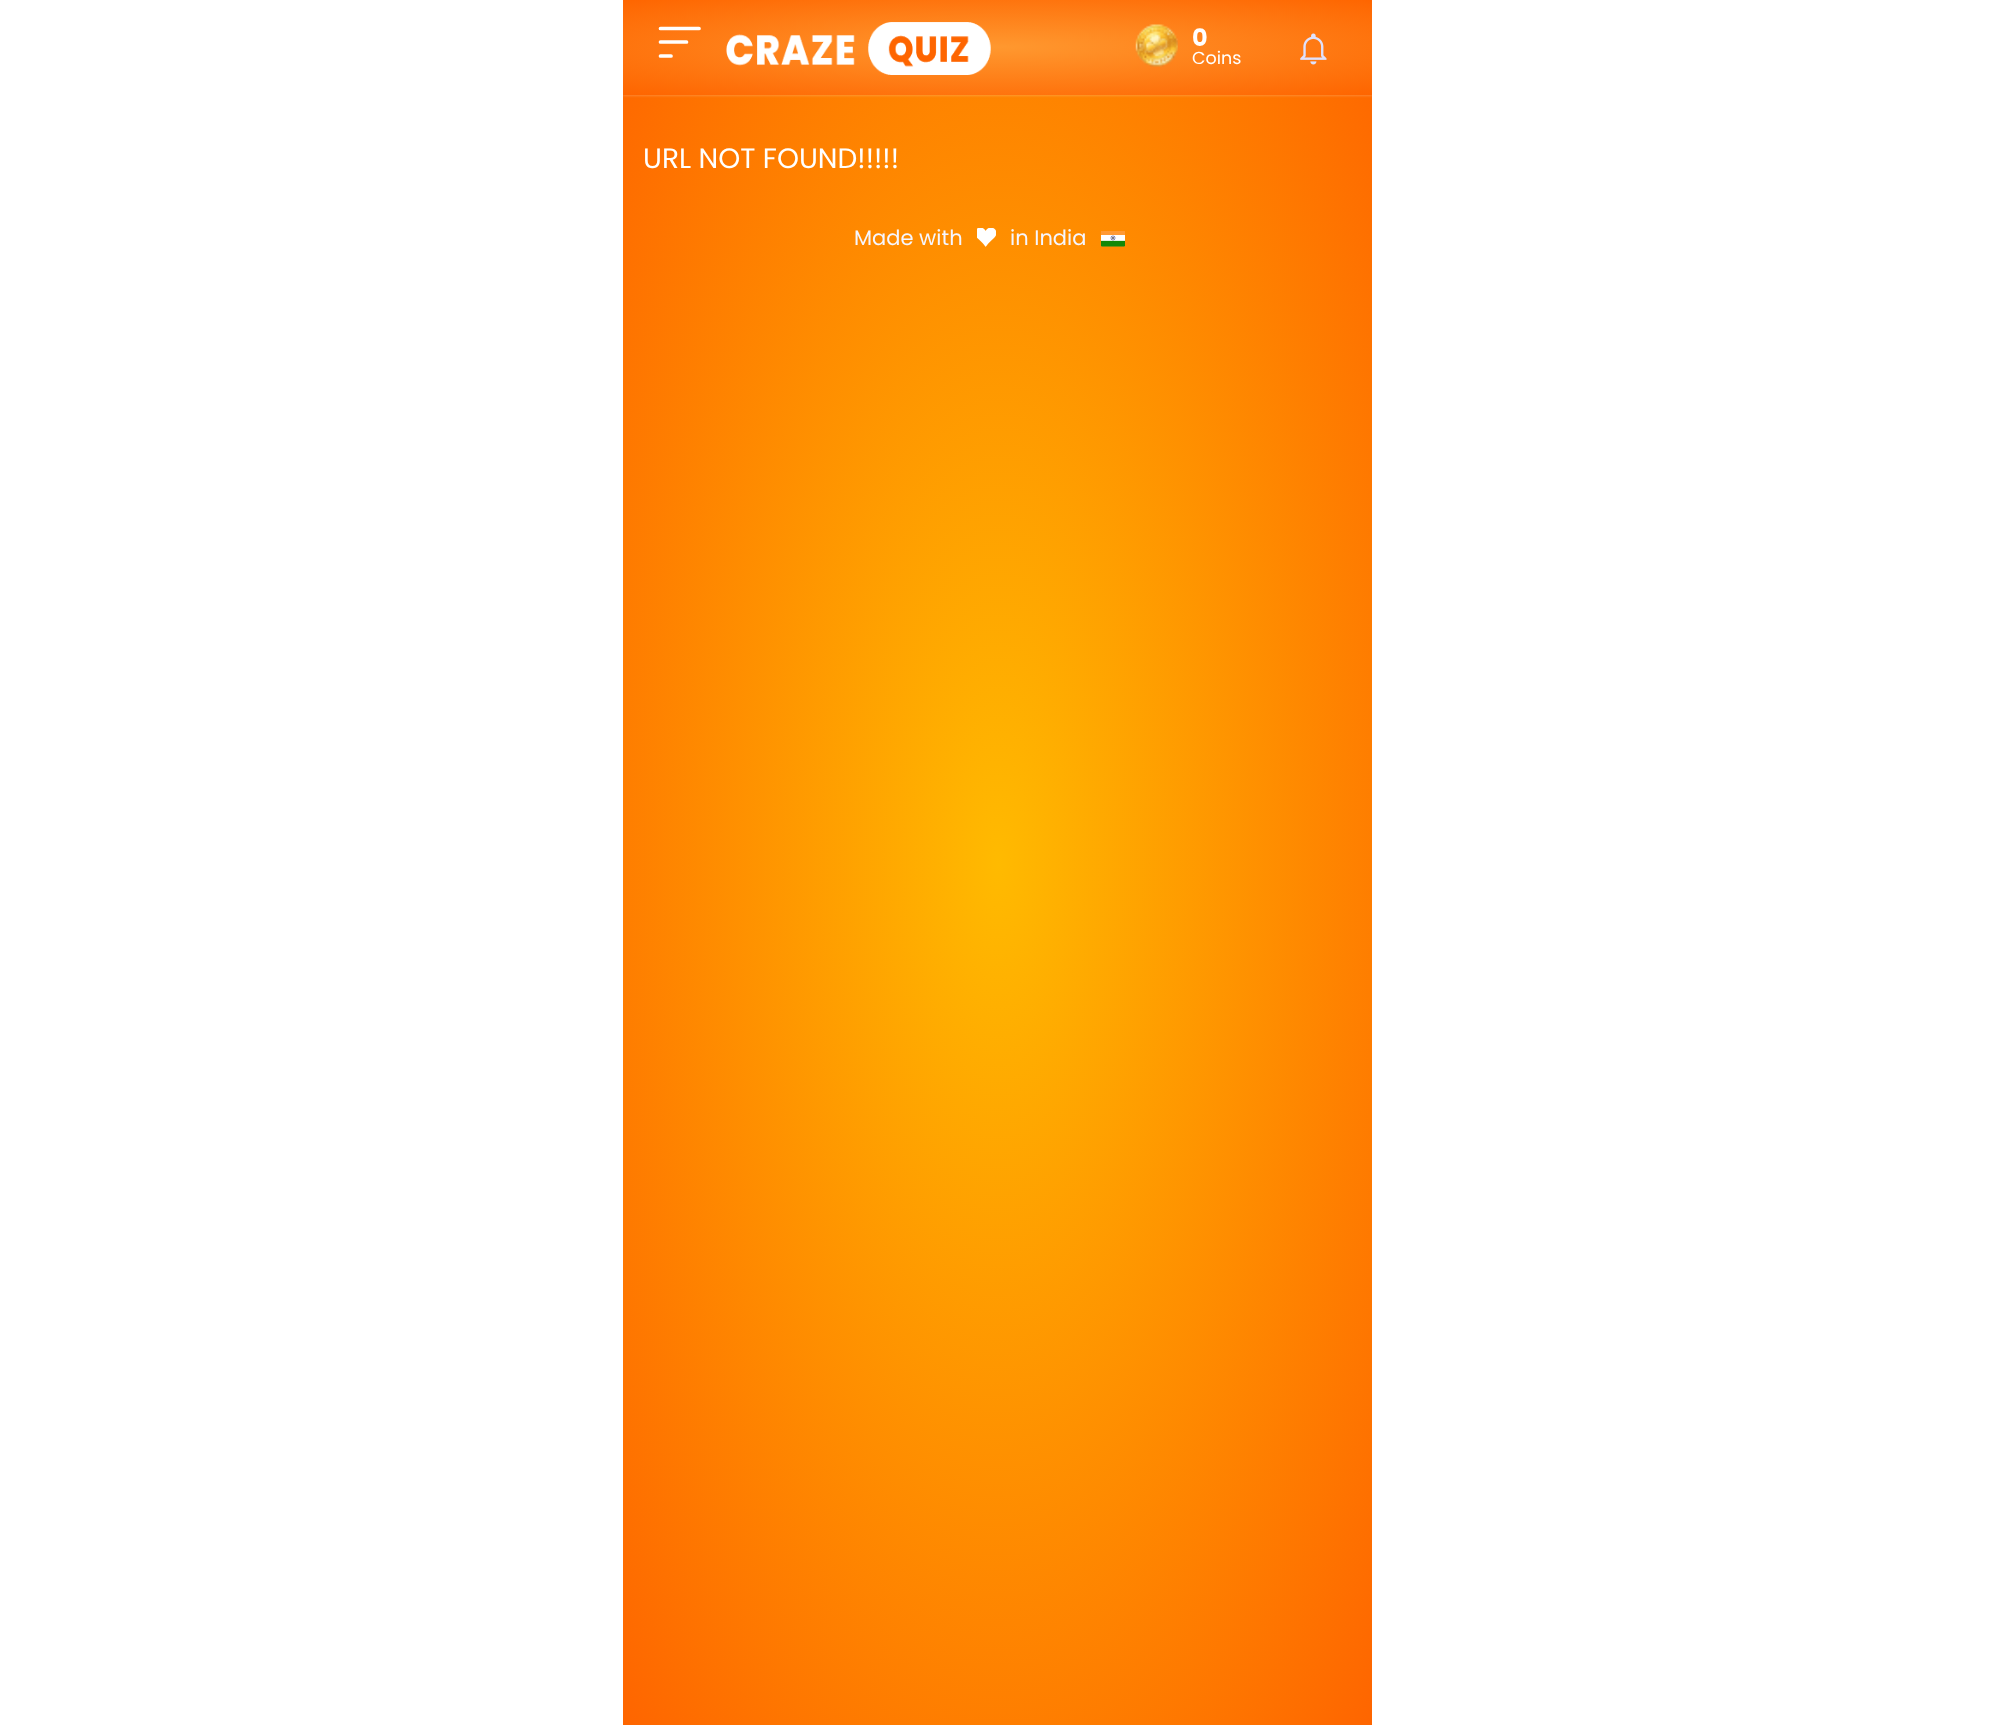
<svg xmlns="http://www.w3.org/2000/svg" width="1992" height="1725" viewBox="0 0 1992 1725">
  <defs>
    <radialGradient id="g1" gradientUnits="userSpaceOnUse" cx="0" cy="0" r="1" gradientTransform="matrix(530 0 0 1220 998 863)"><stop offset="0" stop-color="#ffba00"/><stop offset="1" stop-color="#fe6500"/></radialGradient>
    <radialGradient id="g2" gradientUnits="userSpaceOnUse" cx="0" cy="0" r="1" gradientTransform="matrix(530 0 0 67 998 47)"><stop offset="0" stop-color="#ff982f"/><stop offset="1" stop-color="#fe6500"/></radialGradient>
  </defs>
  <rect width="100%" height="100%" fill="#fff"/>
  <path d="M623 95h749v1630H623z" fill="url(#g1)"/>
  <path d="M623 2h749v94H623z" fill="#ffffff30" filter="blur(1px)"/>
  <path d="M623 0h749v95H623z" fill="url(#g2)"/>
  <path d="M660.5 28.5H699M660.5 42H686.5M660.5 56H671" fill="none" stroke="#fff" stroke-width="3.7" stroke-linecap="round"/>
  <image x="726" y="22" width="265" height="53" href="img/1.png"/>
  <image x="1135" y="24" width="43" height="43" href="img/2.png"/>
  <image x="1300" y="33" width="27" height="32" href="img/3.png"/>
  <image x="977" y="228" width="19" height="19" href="img/4.png"/>
  <image x="1101" y="231" width="24" height="16" href="img/5.png"/>
  <text x="1192" y="46" font-family="Poppins" font-size="24" font-weight="bold" fill="#fff">0</text>
  <text x="1192" y="64" font-family="Poppins" font-size="17.5" fill="#fff">Coins</text>
  <text x="643" y="168" font-family="Poppins" font-size="28" fill="#fff">URL NOT FOUND!!!!!</text>
  <g font-family="Poppins" font-size="21" fill="#f5f6ff">
    <text x="854" y="245">Made with</text>
    <text x="1010" y="245">in India</text>
  </g>
</svg>
